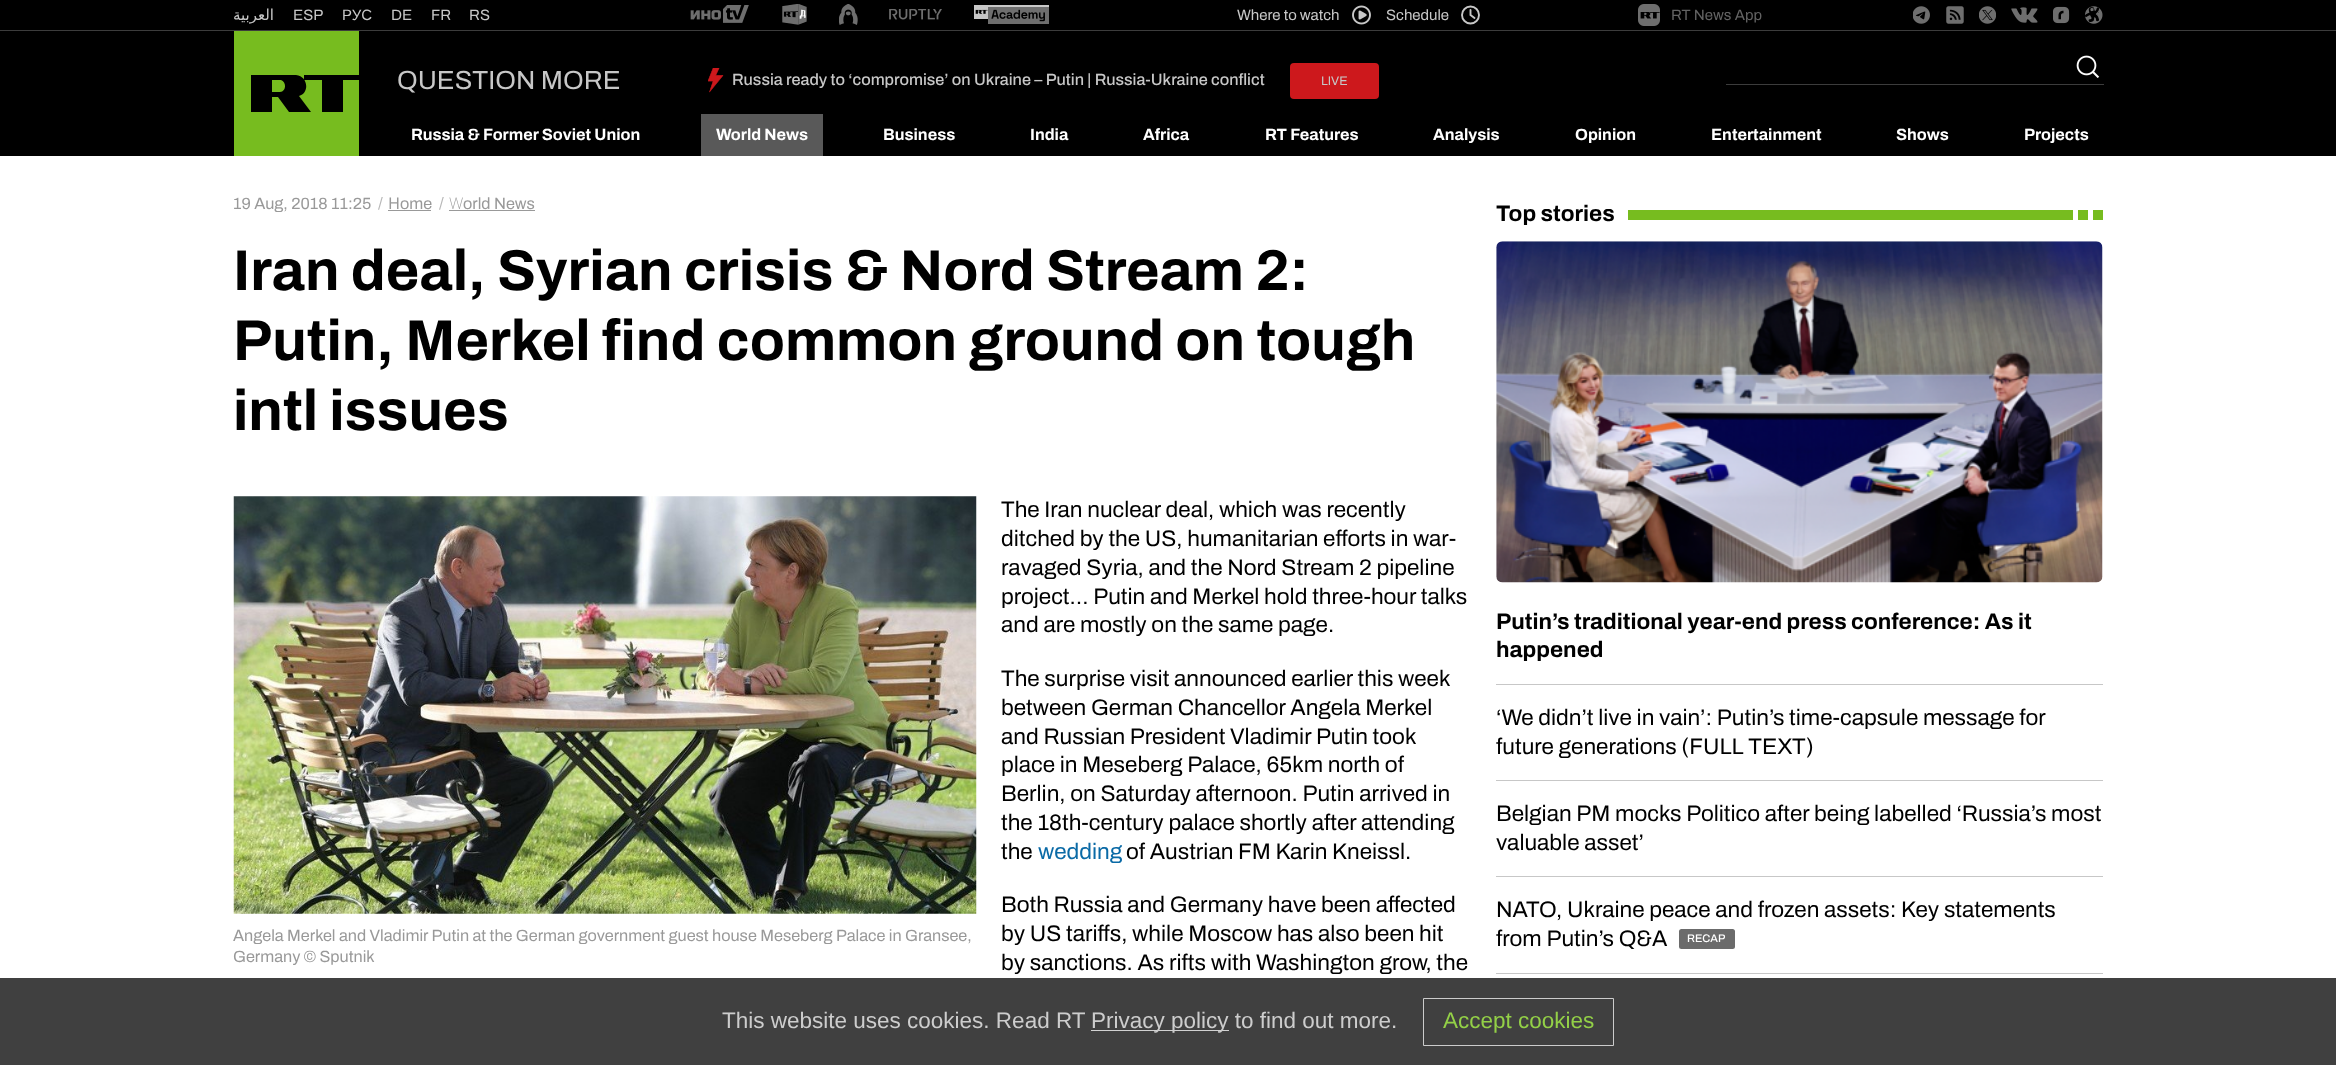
<svg xmlns="http://www.w3.org/2000/svg" width="2336" height="1065" viewBox="0 0 2336 1065">
  <rect width="100%" height="100%" fill="#fff"/>
  <path d="M0 0h2336v30H0z" fill="#000"/>
  <path d="M0 30h2336v1H0z" fill="#3c3c3c"/>
  <image x="690" y="5" width="59" height="18" href="img/1.png"/>
  <image x="782" y="4" width="25" height="21" href="img/2.png"/>
  <image x="839" y="4" width="19" height="21" href="img/3.png"/>
  <image x="889" y="9" width="53" height="11" href="img/4.png"/>
  <image x="974" y="5" width="75" height="19" href="img/5.png"/>
  <image x="1352" y="5" width="19" height="20" href="img/6.png"/>
  <circle cx="1470.5" cy="15" r="8.5" fill="none" stroke="#c7c7c7" stroke-width="1.9"/>
  <path d="M1470.5 10V15L1474.5 18" fill="none" stroke="#c7c7c7" stroke-width="1.9" stroke-linecap="round"/>
  <image x="1638" y="4" width="22" height="22" href="img/7.png"/>
  <image x="1913" y="6" width="17" height="18" href="img/8.png"/>
  <image x="1946" y="6" width="18" height="18" href="img/9.png"/>
  <image x="1979" y="6" width="17" height="18" href="img/10.png"/>
  <image x="2011" y="7" width="27" height="16" href="img/11.png"/>
  <image x="2053" y="6" width="17" height="18" href="img/12.png"/>
  <image x="2085" y="6" width="18" height="18" href="img/13.png"/>
  <path d="M0 31h2336v125H0z" fill="#000"/>
  <path d="M234 31h125v125H234z" fill="#77bc1f"/>
  <path d="M296 75C308 76 310 93 299 96L311 112H289L278 97H272V112H251V75ZM280 92C286 92 287 82 281 80H272V92Z" fill="#000"/>
  <path d="M304 75V80H322V112H343V80H359V75Z" fill="#000"/>
  <image x="708" y="68" width="16" height="25" href="img/14.png"/>
  <rect x="1290" y="63" width="89" height="36" rx="4" fill="#cd181c"/>
  <image x="2076" y="55" width="24" height="23" href="img/15.png"/>
  <path d="M1726 84h378v1H1726z" fill="#3c3c3c"/>
  <path d="M701 114h122v42H701z" fill="#595959"/>
  <path d="M0 978h2336v87H0z" fill="#404040"/>
  <path d="M388 210h43v1H388z" fill="#999"/>
  <path d="M449 210h86v1H449z" fill="#999"/>
  <image x="233" y="496" width="744" height="418" href="img/16.png"/>
  <path d="M1628 210h475v10H1628z" fill="#77bc1f"/>
  <path d="M2088 210h5v10H2088z" fill="#fff"/>
  <path d="M2073 210h5v10H2073z" fill="#fff"/>
  <path d="M1496 684h607v1H1496z" fill="#c7c7c7"/>
  <image x="1496" y="241" width="607" height="342" href="img/17.png"/>
  <path d="M1496 780h607v1H1496z" fill="#c7c7c7"/>
  <path d="M1496 876h607v1H1496z" fill="#c7c7c7"/>
  <path d="M1496 973h607v1H1496z" fill="#c7c7c7"/>
  <rect x="1679" y="929" width="56" height="20" rx="2.5" fill="#6b6b6b"/>
  <path d="M1091 1030h138v1H1091z" fill="#d2d2d2"/>
  <path d="M1423.5 998.5h190v47H1423.5z" fill="none" stroke="#d1d1d1f7"/>
  <text x="274" y="20" font-family="DejaVu Sans" font-size="15" direction="rtl" fill="#c7c7c7">العربية</text>
  <text x="293" y="20" font-family="Archivo" font-size="15" fill="#c7c7c7">ESP</text>
  <text x="342" y="20" font-family="Liberation Sans" font-size="15" fill="#c7c7c7">РУС</text>
  <g font-family="Archivo" font-size="15" fill="#c7c7c7">
    <text x="391" y="20">DE</text>
    <text x="431" y="20">FR</text>
    <text x="469" y="20">RS</text>
    <text x="1237" y="20">Where to watch</text>
    <text x="1386" y="20">Schedule</text>
  </g>
  <text x="1671" y="20" font-family="Archivo" font-size="15" fill="#636363">RT News App</text>
  <text x="397" y="89" font-family="Archivo" font-size="26.25" fill="#c7c7c7">QUESTION MORE</text>
  <text x="732" y="85" font-family="Archivo" font-size="16.25" font-weight="500" fill="#c7c7c7">Russia ready to ‘compromise’ on Ukraine – Putin | Russia-Ukraine conflict</text>
  <text x="1321" y="85" font-family="Archivo" font-size="12.5" fill="#c7c7c7">LIVE</text>
  <g font-family="Archivo" font-size="16.25" font-weight="bold" fill="#fff">
    <text x="411" y="140">Russia &amp; Former Soviet Union</text>
    <text x="716" y="140">World News</text>
    <text x="883" y="140">Business</text>
    <text x="1030" y="140">India</text>
    <text x="1143" y="140">Africa</text>
    <text x="1265" y="140">RT Features</text>
    <text x="1433" y="140">Analysis</text>
    <text x="1575" y="140">Opinion</text>
    <text x="1711" y="140">Entertainment</text>
    <text x="1896" y="140">Shows</text>
    <text x="2024" y="140">Projects</text>
  </g>
  <text x="233" y="209" font-family="Archivo" font-size="16.25" fill="#999">19 Aug, 2018 11:25</text>
  <text x="378" y="209" font-family="Archivo" font-size="16.25" fill="#b8b8b8">/</text>
  <text x="388" y="209" font-family="Noto Sans" font-size="16.25" fill="#999">H</text>
  <text x="400" y="209" font-family="Archivo" font-size="16.25" fill="#999">ome</text>
  <text x="439" y="209" font-family="Archivo" font-size="16.25" fill="#b8b8b8">/</text>
  <text x="449" y="209" font-family="Noto Sans" font-size="16.25" font-weight="200" fill="#999">W</text>
  <text x="463" y="209" font-family="Archivo" font-size="16.25" fill="#999">orld News</text>
  <g font-family="Archivo" font-size="57.5" font-weight="bold" fill="#000">
    <text x="233" y="290">Iran deal, Syrian crisis &amp; Nord Stream 2:</text>
    <text x="233" y="360">Putin, Merkel find common ground on tough</text>
    <text x="233" y="430">intl issues</text>
  </g>
  <g font-family="Archivo" font-size="16.25" fill="#999">
    <text x="233" y="941">Angela Merkel and Vladimir Putin at the German government guest house Meseberg Palace in Gransee,</text>
    <text x="233" y="962">Germany © Sputnik</text>
  </g>
  <g font-family="Archivo" font-size="22.5" fill="#000">
    <text x="1001" y="517">The Iran nuclear deal, which was recently</text>
    <text x="1001" y="546">ditched by the US, humanitarian efforts in war-</text>
    <text x="1001" y="575">ravaged Syria, and the Nord Stream 2 pipeline</text>
    <text x="1001" y="604">project… Putin and Merkel hold three-hour talks</text>
    <text x="1001" y="632">and are mostly on the same page.</text>
    <text x="1001" y="686">The surprise visit announced earlier this week</text>
    <text x="1001" y="715">between German Chancellor Angela Merkel</text>
    <text x="1001" y="744">and Russian President Vladimir Putin took</text>
    <text x="1001" y="772">place in Meseberg Palace, 65km north of</text>
    <text x="1001" y="801">Berlin, on Saturday afternoon. Putin arrived in</text>
    <text x="1001" y="830">the 18th-century palace shortly after attending</text>
    <text x="1001" y="859">the</text>
  </g>
  <text x="1038" y="859" font-family="Archivo" font-size="22.5" fill="#0a6aa6">wedding</text>
  <g font-family="Archivo" font-size="22.5" fill="#000">
    <text x="1126" y="859">of Austrian FM Karin Kneissl.</text>
    <text x="1001" y="912">Both Russia and Germany have been affected</text>
    <text x="1001" y="941">by US tariffs, while Moscow has also been hit</text>
    <text x="1001" y="970">by sanctions. As rifts with Washington grow, the</text>
  </g>
  <g font-family="Archivo" font-size="22.5" font-weight="bold" fill="#000">
    <text x="1496" y="221">Top stories</text>
    <text x="1496" y="629">Putin’s traditional year-end press conference: As it</text>
    <text x="1496" y="657">happened</text>
  </g>
  <g font-family="Archivo" font-size="22.5" fill="#000">
    <text x="1496" y="725">‘We didn’t live in vain’: Putin’s time-capsule message for</text>
    <text x="1496" y="754">future generations (FULL TEXT)</text>
    <text x="1496" y="821">Belgian PM mocks Politico after being labelled ‘Russia’s most</text>
    <text x="1496" y="850">valuable asset’</text>
    <text x="1496" y="917">NATO, Ukraine peace and frozen assets: Key statements</text>
    <text x="1496" y="946">from Putin’s Q&amp;A</text>
  </g>
  <text x="1687" y="942" font-family="Archivo" font-size="11" font-weight="500" fill="#fff">RECAP</text>
  <g font-family="Liberation Sans" font-size="22.5" fill="#cdcdcd">
    <text x="722" y="1028">This website uses cookies. Read RT</text>
    <text x="1091" y="1028">Privacy policy to find out more.</text>
  </g>
  <text x="1443" y="1028" font-family="Liberation Sans" font-size="22.5" fill="#93d047">Accept cookies</text>
</svg>
